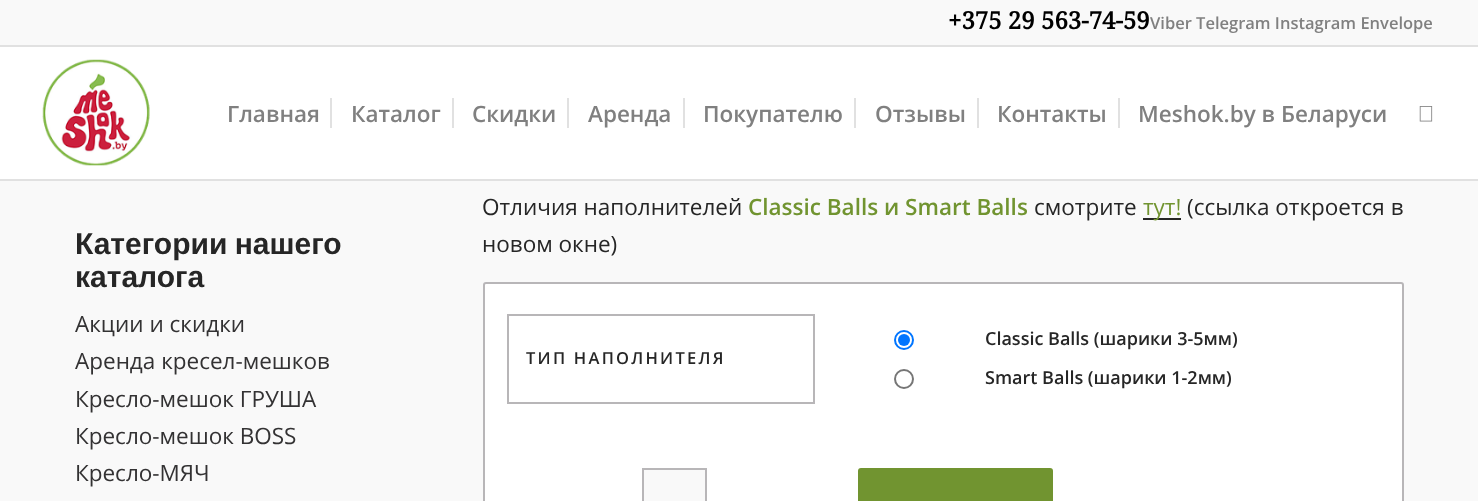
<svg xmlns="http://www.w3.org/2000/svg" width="1478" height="501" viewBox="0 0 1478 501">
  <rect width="100%" height="100%" fill="#f9f9f9"/>
  <path d="M0 45h1478v2H0z" fill="#e1e1e1"/>
  <path d="M0 47h1478v132H0z" fill="#fff"/>
  <path d="M0 179h1478v2H0z" fill="#e1e1e1"/>
  <image x="42" y="59" width="108" height="107" href="img/1.png"/>
  <path d="M330 98h2v30H330z" fill="#e1e1e1"/>
  <path d="M452 98h2v30H452z" fill="#e1e1e1"/>
  <path d="M567 98h2v30H567z" fill="#e1e1e1"/>
  <path d="M683 98h2v30H683z" fill="#e1e1e1"/>
  <path d="M854 98h2v30H854z" fill="#e1e1e1"/>
  <path d="M977 98h2v30H977z" fill="#e1e1e1"/>
  <path d="M1118 98h2v30H1118z" fill="#e1e1e1"/>
  <image x="1419" y="106" width="14" height="16" href="img/2.png"/>
  <path d="M1143 218h38v2H1143z" fill="#262626"/>
  <rect x="484" y="283" width="919" height="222" rx="2" fill="#fff" stroke="#b8b6b8" stroke-width="2"/>
  <path d="M507 314h308v2H507z" fill="#b8b6b8"/>
  <path d="M813 314h2v90H813z" fill="#b8b6b8"/>
  <path d="M507 402h308v2H507z" fill="#b8b6b8"/>
  <path d="M507 314h2v90H507z" fill="#b8b6b8"/>
  <circle cx="904" cy="340" r="9" fill="none" stroke="#0075ff" stroke-width="2"/>
  <circle cx="904" cy="340" r="6" fill="#0075ff"/>
  <circle cx="904" cy="379" r="9" fill="none" stroke="#767676" stroke-width="2"/>
  <path d="M643 469h63v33H643z" fill="#f9f9f9" stroke="#b8b6b8" stroke-width="2"/>
  <rect x="858" y="468" width="195" height="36" rx="3" fill="#719430"/>
  <text x="948" y="29" font-family="Droid Serif" font-size="24" font-weight="bold" fill="#000">+375 29 563-74-59</text>
  <text x="1150" y="29" font-family="Open Sans" font-size="16.5" font-weight="600" fill="#808080">Viber Telegram Instagram Envelope</text>
  <g font-family="Open Sans" font-size="22.5" font-weight="600" fill="#808080">
    <text x="227" y="122">Главная</text>
    <text x="351" y="122">Каталог</text>
    <text x="472" y="122">Cкидки</text>
    <text x="588" y="122">Аренда</text>
    <text x="703" y="122">Покупателю</text>
    <text x="875" y="122">Отзывы</text>
    <text x="997" y="122">Контакты</text>
    <text x="1138" y="122">Meshok.by в Беларуси</text>
  </g>
  <g font-family="Liberation Sans" font-size="30" font-weight="bold" fill="#262626">
    <text x="75" y="254" word-spacing="-1">Категории нашего</text>
    <text x="75" y="287">каталога</text>
  </g>
  <g font-family="Open Sans" font-size="22.5" fill="#333233">
    <text x="75" y="332">Акции и скидки</text>
    <text x="75" y="369">Аренда кресел-мешков</text>
    <text x="75" y="407">Кресло-мешок ГРУША</text>
    <text x="75" y="444">Кресло-мешок BOSS</text>
    <text x="75" y="481">Кресло-МЯЧ</text>
  </g>
  <text x="482" y="215" font-family="Open Sans" font-size="22.5" fill="#262626">Отличия наполнителей</text>
  <text x="748" y="215" font-family="Open Sans" font-size="22.5" font-weight="600" fill="#719430">Classic Balls и Smart Balls</text>
  <text x="1034" y="215" font-family="Open Sans" font-size="22.5" fill="#262626">смотрите</text>
  <text x="1143" y="215" font-family="Open Sans" font-size="22.5" fill="#719430">тут!</text>
  <g font-family="Open Sans" font-size="22.5" fill="#262626">
    <text x="1187" y="215">(ссылка откроется в</text>
    <text x="482" y="252">новом окне)</text>
  </g>
  <text x="526" y="364" font-family="Open Sans" font-size="16.5" font-weight="600" letter-spacing="2.25" fill="#262626">ТИП НАПОЛНИТЕЛЯ</text>
  <g font-family="Open Sans" font-size="18" font-weight="600" fill="#262626">
    <text x="985" y="345">Classic Balls (шарики 3-5мм)</text>
    <text x="985" y="384">Smart Balls (шарики 1-2мм)</text>
  </g>
</svg>
